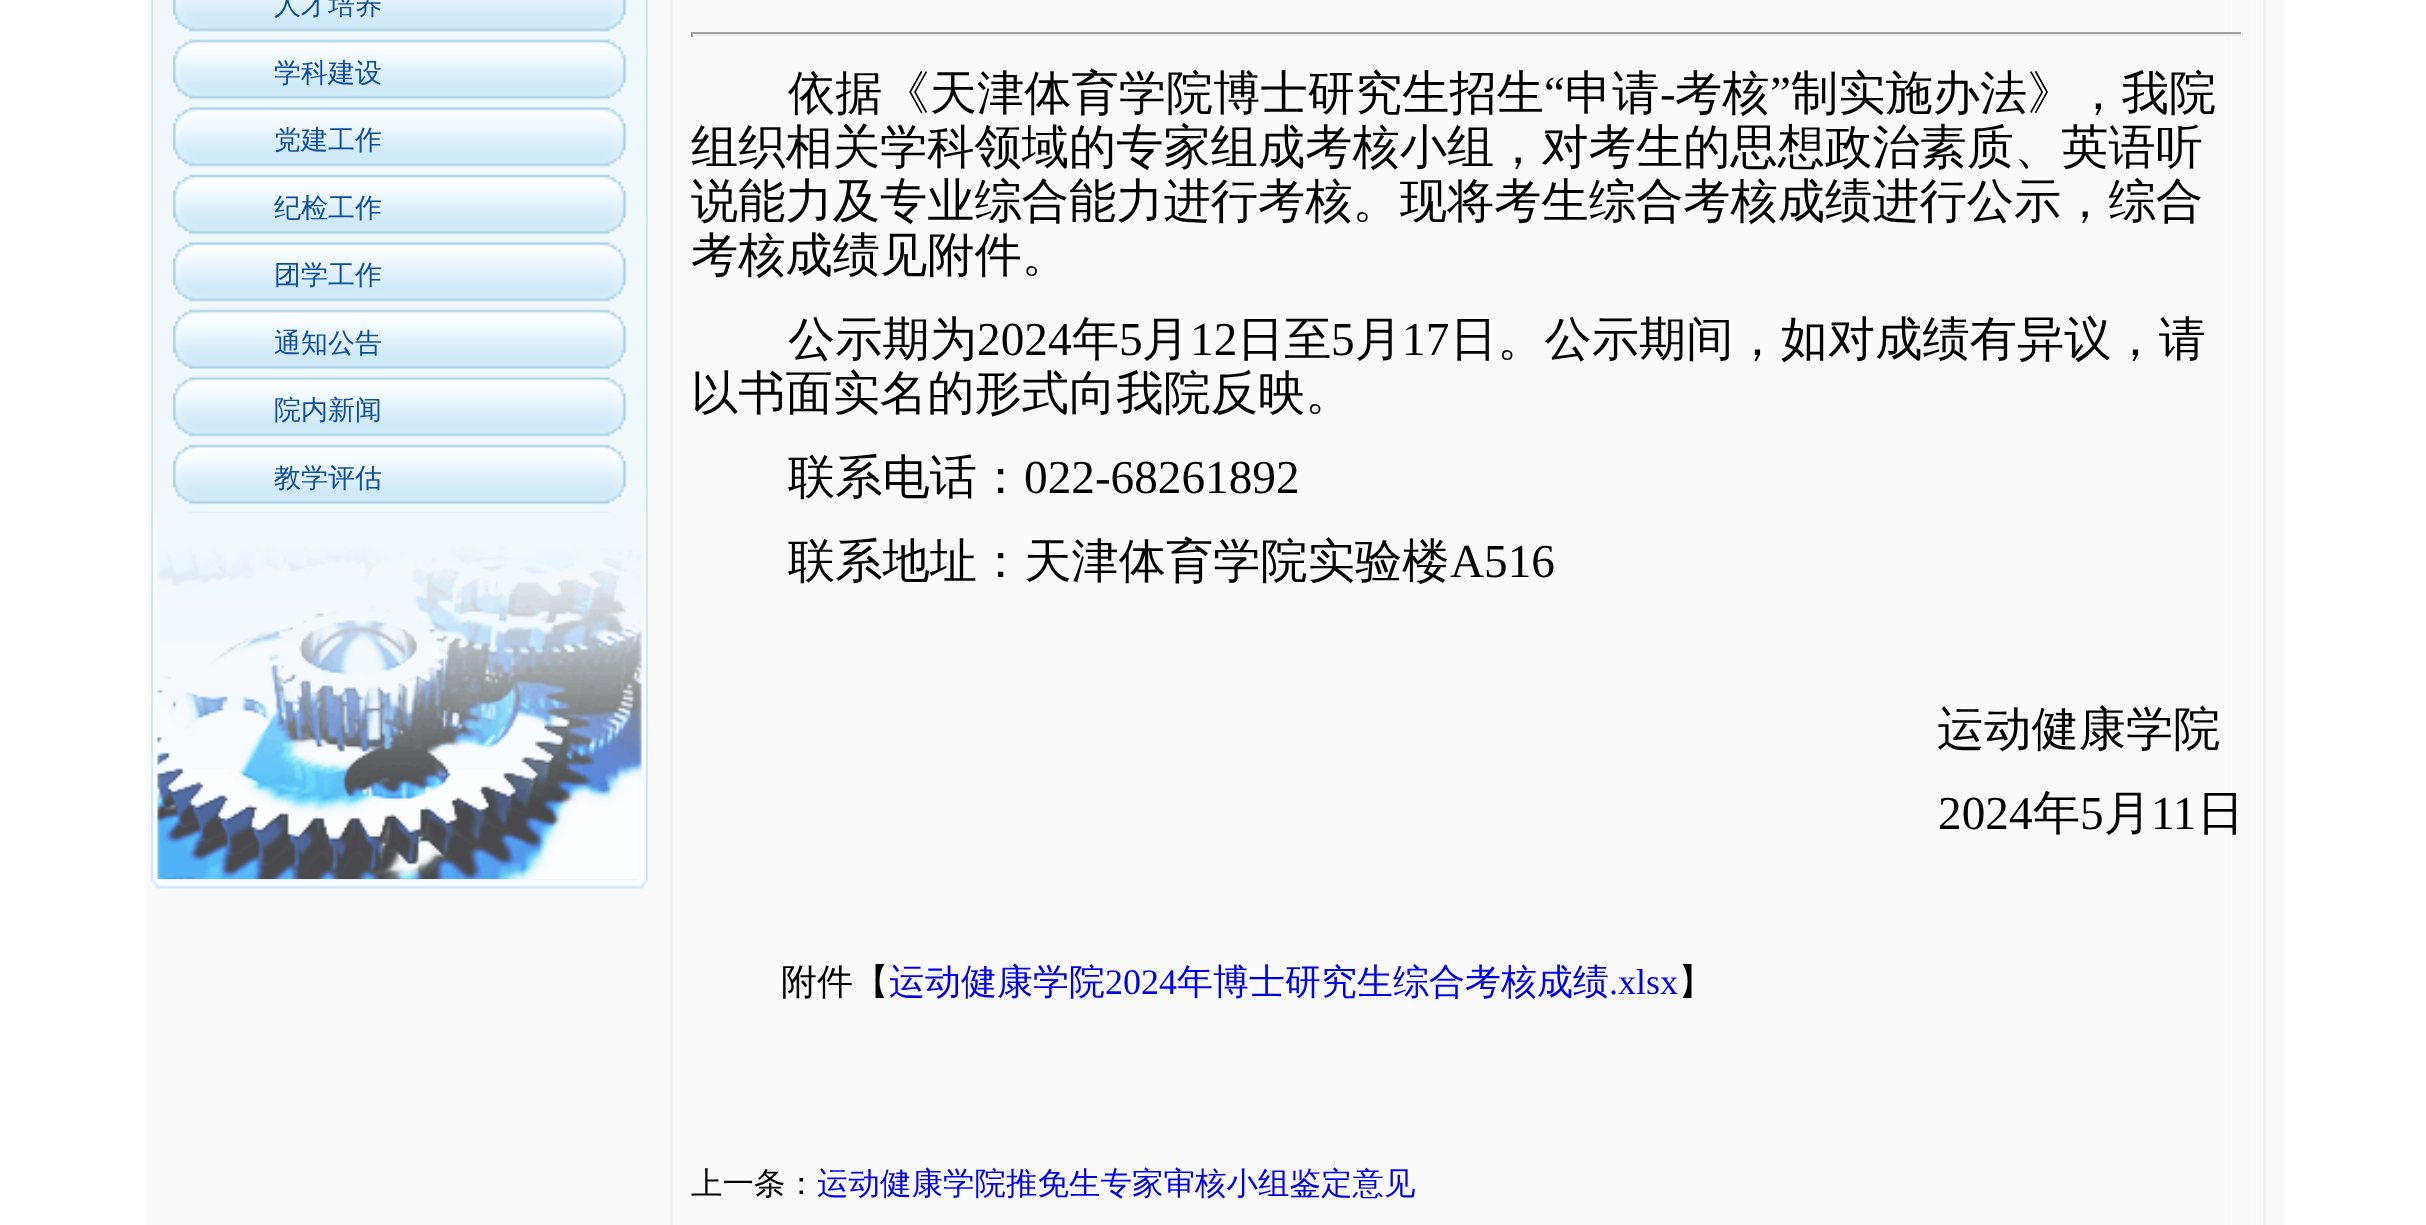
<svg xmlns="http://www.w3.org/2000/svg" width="2426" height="1225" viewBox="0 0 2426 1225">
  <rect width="100%" height="100%" fill="#fff"/>
  <path d="M146 0h2138v1225H146z" fill="#fafafa"/>
  <path d="M153 0h493v513H153z" fill="#f1f8fc"/>
  <path d="M646 0h2v880H646z" fill="#cee7ff"/>
  <path d="M151 0h2v880H151z" fill="#cee7ff"/>
  <image x="173" y="0" width="453" height="513" href="img/1.png"/>
  <image x="153" y="512" width="493" height="368" href="img/2.png"/>
  <image x="150" y="879" width="498" height="10" href="img/3.png"/>
  <image x="670" y="0" width="1596" height="1225" href="img/4.png"/>
  <path d="M691 32h1552v2H691z" fill="#9f9f9f"/>
  <path d="M2241 32h2v5H2241z" fill="#eee"/>
  <path d="M691 34h1552v2H691z" fill="#eee"/>
  <path d="M691 32h2v5H691z" fill="#9f9f9f"/>
  <g font-family="WenQuanYi Zen Hei" font-size="27" font-weight="500" fill="#0b4e9f">
    <text x="274" y="14">人才培养</text>
    <text x="274" y="82">学科建设</text>
    <text x="274" y="149">党建工作</text>
    <text x="274" y="217">纪检工作</text>
    <text x="274" y="284">团学工作</text>
    <text x="274" y="352">通知公告</text>
    <text x="274" y="419">院内新闻</text>
    <text x="274" y="487">教学评估</text>
  </g>
  <text x="788" y="109" font-family="WenQuanYi Zen Hei" font-size="47.25" font-weight="500" fill="#000">依据《天津体育学院博士研究生招生</text>
  <text x="1544" y="109" font-family="Liberation Serif" font-size="47.25" fill="#000">“</text>
  <g font-family="WenQuanYi Zen Hei" font-size="47.25" font-weight="500" fill="#000">
    <text x="1565" y="109">申请</text>
    <text x="1675" y="109">考核</text>
  </g>
  <text x="1770" y="109" font-family="Liberation Serif" font-size="47.25" fill="#000">”</text>
  <text x="1791" y="109" font-family="WenQuanYi Zen Hei" font-size="47.25" font-weight="500" fill="#000">制实施办法》，我院</text>
  <text x="1660" y="109" font-family="Liberation Serif" font-size="47.25" fill="#000">-</text>
  <g font-family="WenQuanYi Zen Hei" font-size="47.25" font-weight="500" fill="#000">
    <text x="691" y="163">组织相关学科领域的专家组成考核小组，对考生的思想政治素质、英语听</text>
    <text x="691" y="217">说能力及专业综合能力进行考核。现将考生综合考核成绩进行公示，综合</text>
    <text x="691" y="271">考核成绩见附件。</text>
    <text x="788" y="355">公示期为</text>
  </g>
  <text x="977" y="355" font-family="Liberation Serif" font-size="47.25" fill="#000">2024</text>
  <text x="1072" y="355" font-family="WenQuanYi Zen Hei" font-size="47.25" font-weight="500" fill="#000">年</text>
  <text x="1119" y="355" font-family="Liberation Serif" font-size="47.25" fill="#000">5</text>
  <text x="1142" y="355" font-family="WenQuanYi Zen Hei" font-size="47.25" font-weight="500" fill="#000">月</text>
  <text x="1190" y="355" font-family="Liberation Serif" font-size="47.25" fill="#000">12</text>
  <text x="1237" y="355" font-family="WenQuanYi Zen Hei" font-size="47.25" font-weight="500" fill="#000">日至</text>
  <text x="1331" y="355" font-family="Liberation Serif" font-size="47.25" fill="#000">5</text>
  <text x="1355" y="355" font-family="WenQuanYi Zen Hei" font-size="47.25" font-weight="500" fill="#000">月</text>
  <text x="1402" y="355" font-family="Liberation Serif" font-size="47.25" fill="#000">17</text>
  <g font-family="WenQuanYi Zen Hei" font-size="47.25" font-weight="500" fill="#000">
    <text x="1450" y="355">日。公示期间，如对成绩有异议，请</text>
    <text x="691" y="409">以书面实名的形式向我院反映。</text>
    <text x="788" y="493">联系电话：</text>
  </g>
  <text x="1024" y="493" font-family="Liberation Serif" font-size="47.25" fill="#000">022-68261892</text>
  <text x="788" y="577" font-family="WenQuanYi Zen Hei" font-size="47.25" font-weight="500" fill="#000">联系地址：天津体育学院实验楼</text>
  <text x="1450" y="577" font-family="Liberation Serif" font-size="47.25" fill="#000">A516</text>
  <text x="1937" y="745" font-family="WenQuanYi Zen Hei" font-size="47.25" font-weight="500" fill="#000">运动健康学院</text>
  <text x="1938" y="829" font-family="Liberation Serif" font-size="47.25" fill="#000">2024</text>
  <text x="2033" y="829" font-family="WenQuanYi Zen Hei" font-size="47.25" font-weight="500" fill="#000">年</text>
  <text x="2080" y="829" font-family="Liberation Serif" font-size="47.25" fill="#000">5</text>
  <text x="2104" y="829" font-family="WenQuanYi Zen Hei" font-size="47.25" font-weight="500" fill="#000">月</text>
  <text x="2151" y="829" font-family="Liberation Serif" font-size="47.25" fill="#000">11</text>
  <text x="2197" y="829" font-family="WenQuanYi Zen Hei" font-size="47.25" font-weight="500" fill="#000">日</text>
  <text x="781" y="994" font-family="WenQuanYi Zen Hei" font-size="36" font-weight="500" fill="#000">附件【</text>
  <text x="889" y="994" font-family="WenQuanYi Zen Hei" font-size="36" font-weight="500" fill="#00e">运动健康学院</text>
  <text x="1105" y="994" font-family="Liberation Serif" font-size="36" fill="#00e">2024</text>
  <text x="1177" y="994" font-family="WenQuanYi Zen Hei" font-size="36" font-weight="500" fill="#00e">年博士研究生综合考核成绩</text>
  <text x="1609" y="994" font-family="Liberation Serif" font-size="36" fill="#00e">.xlsx</text>
  <text x="1678" y="994" font-family="WenQuanYi Zen Hei" font-size="36" font-weight="500" fill="#000">】</text>
  <text x="691" y="1194" font-family="WenQuanYi Zen Hei" font-size="31.5" font-weight="500" fill="#000">上一条：</text>
  <text x="817" y="1194" font-family="WenQuanYi Zen Hei" font-size="31.5" font-weight="500" fill="#00e">运动健康学院推免生专家审核小组鉴定意见</text>
</svg>
